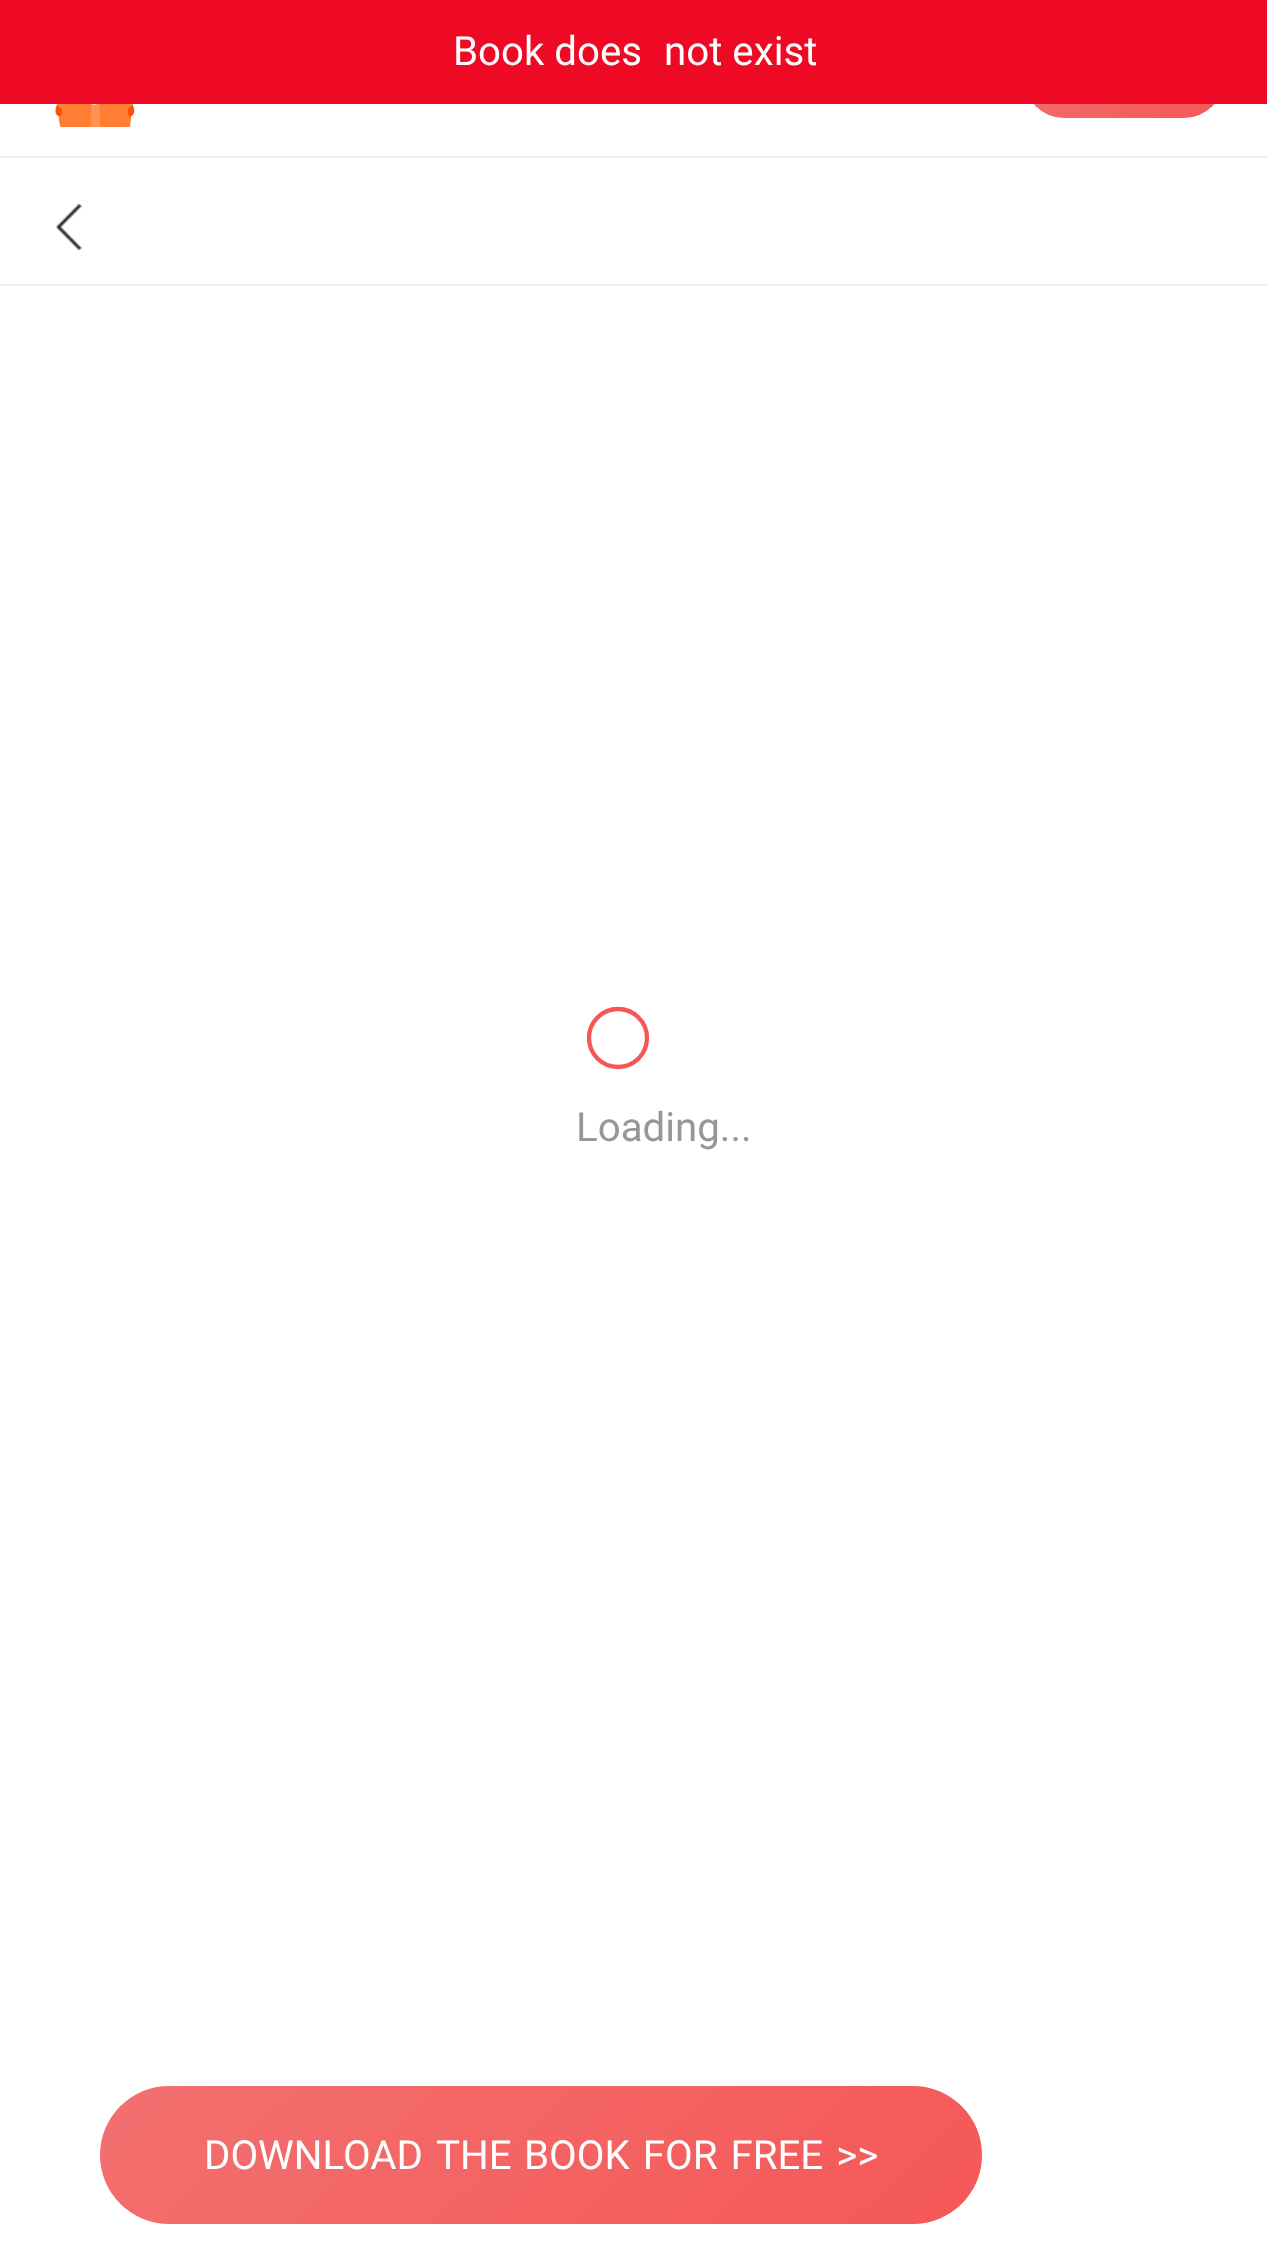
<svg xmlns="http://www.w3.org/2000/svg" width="1267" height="2267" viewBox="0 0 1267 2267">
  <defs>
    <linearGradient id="g1" gradientUnits="userSpaceOnUse" x1="1058" y1="6.7" x2="1190" y2="149"><stop offset="0" stop-color="#f37070"/><stop offset="1" stop-color="#f55757"/></linearGradient>
    <linearGradient id="g2" gradientUnits="userSpaceOnUse" x1="301" y1="1898" x2="781" y2="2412"><stop offset="0" stop-color="#f37070"/><stop offset="1" stop-color="#f55757"/></linearGradient>
  </defs>
  <rect width="100%" height="100%" fill="#fff"/>
  <rect x="1024" y="38" width="200" height="80" rx="40" fill="url(#g1)"/>
  <path d="M0 0h1267v104H0z" fill="#ee0a24"/>
  <path d="M0 156h1267v2H0z" fill="#eee"/>
  <image x="52" y="104" width="86" height="23" href="img/1.png"/>
  <path d="M0 284h1267v2H0z" fill="#f0f0f0"/>
  <image x="56" y="204" width="27" height="46" href="img/2.png"/>
  <circle cx="618" cy="1038" r="29" fill="none" stroke="#f55757" stroke-width="4.3"/>
  <rect x="100" y="2086" width="882" height="138" rx="69" fill="url(#g2)"/>
  <text x="453" y="65" font-family="Roboto" font-size="40.25" fill="#fff">Book does</text>
  <text x="664" y="65" font-family="Roboto" font-size="40.25" fill="#fff">not exist</text>
  <text x="576" y="1141" font-family="Roboto" font-size="40.25" fill="#969799">Loading...</text>
  <g font-family="Roboto" font-size="40.25" fill="#fff">
    <text x="204" y="2169">DOWNLOAD</text>
    <text x="436" y="2169">THE</text>
    <text x="524" y="2169" word-spacing="3">BOOK FOR FREE &gt;&gt;</text>
  </g>
</svg>
